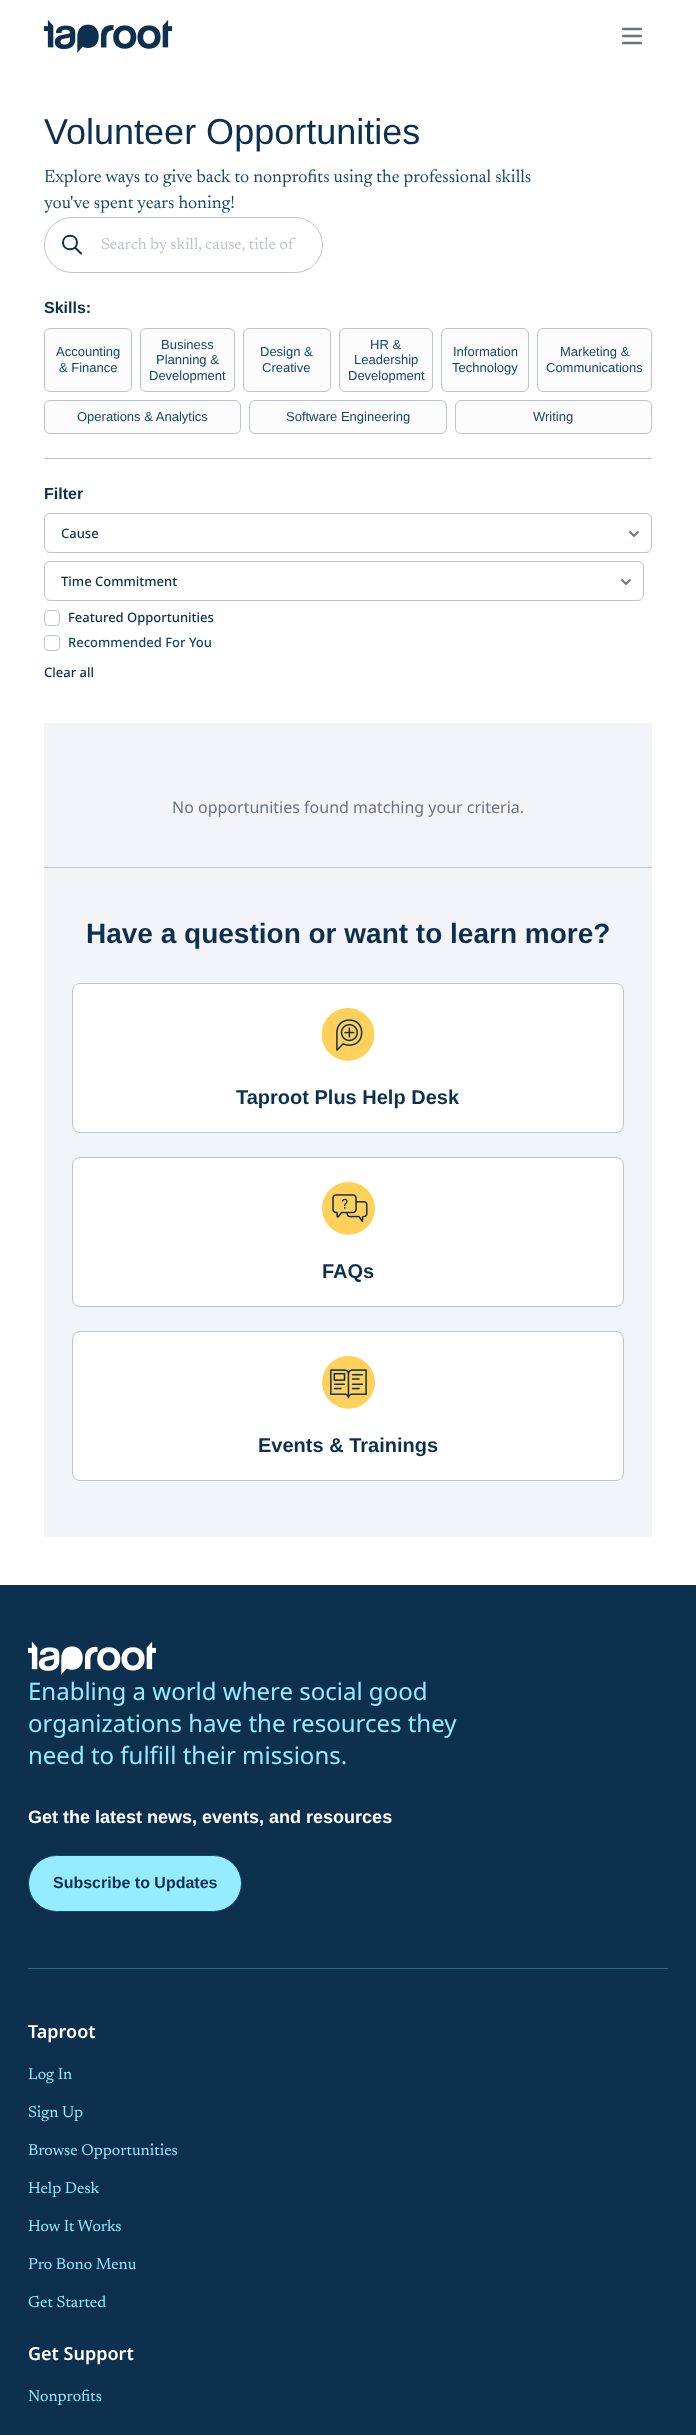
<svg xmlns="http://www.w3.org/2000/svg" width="696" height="2435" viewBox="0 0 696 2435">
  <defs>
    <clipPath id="clip1"><path d="M622 26h20v20H622z"/></clipPath>
  </defs>
  <rect width="100%" height="100%" fill="#fff"/>
  <image x="44" y="20" width="128" height="33" href="img/1.png"/>
  <g clip-path="url(#clip1)">
    <path d="M623 29H641M623 36H641M623 43H641" fill="none" stroke="#6b7280" stroke-width="2.4" stroke-linecap="round" stroke-linejoin="round"/>
  </g>
  <rect x="44.5" y="217.5" width="278" height="55" rx="27.5" fill="none" stroke="#bec4cf"/>
  <path d="M81 253.5L75 247.5M77 242.5C77 251.5 63 251.5 63 242.5C63 233.5 77 233.5 77 242.5Z" fill="none" stroke="#0c304d" stroke-width="2" stroke-linecap="round" stroke-linejoin="round"/>
  <path d="M44 458h608v1H44z" fill="#bec4cf"/>
  <rect x="44.5" y="328.5" width="87" height="63" rx="5.5" fill="#fcfcfc" stroke="#bec4cf"/>
  <rect x="140.5" y="328.5" width="94" height="63" rx="5.5" fill="#fcfcfc" stroke="#bec4cf"/>
  <rect x="243.5" y="328.5" width="87" height="63" rx="5.5" fill="#fcfcfc" stroke="#bec4cf"/>
  <rect x="339.5" y="328.5" width="93" height="63" rx="5.5" fill="#fcfcfc" stroke="#bec4cf"/>
  <rect x="441.5" y="328.5" width="87" height="63" rx="5.5" fill="#fcfcfc" stroke="#bec4cf"/>
  <rect x="537.5" y="328.5" width="114" height="63" rx="5.5" fill="#fcfcfc" stroke="#bec4cf"/>
  <rect x="44.5" y="400.5" width="196" height="33" rx="5.5" fill="#fcfcfc" stroke="#bec4cf"/>
  <rect x="249.5" y="400.5" width="197" height="33" rx="5.5" fill="#fcfcfc" stroke="#bec4cf"/>
  <rect x="455.5" y="400.5" width="196" height="33" rx="5.5" fill="#fcfcfc" stroke="#bec4cf"/>
  <path d="M630 532L634 536L638 532" fill="none" stroke="#6b7280" stroke-width="1.9" stroke-linecap="round" stroke-linejoin="round"/>
  <rect x="44.5" y="513.5" width="607" height="39" rx="5.5" fill="none" stroke="#bec4cf"/>
  <path d="M622 580L626 584L630 580" fill="none" stroke="#6b7280" stroke-width="1.9" stroke-linecap="round" stroke-linejoin="round"/>
  <rect x="44.5" y="561.5" width="599" height="39" rx="5.5" fill="none" stroke="#bec4cf"/>
  <rect x="44.5" y="610.5" width="15" height="15" rx="3.5" fill="none" stroke="#bec4cf"/>
  <rect x="44.5" y="635.5" width="15" height="15" rx="3.5" fill="none" stroke="#bec4cf"/>
  <path d="M44 723h608v144H44z" fill="#f2f4f8"/>
  <path d="M44 868h608v669H44z" fill="#f2f4f8"/>
  <path d="M44 867h608v1H44z" fill="#bec4cf"/>
  <rect x="72.5" y="983.5" width="551" height="149" rx="7.5" fill="#fff" stroke="#bec4cf"/>
  <image x="322" y="1008" width="52" height="53" href="img/2.png"/>
  <rect x="72.5" y="1157.5" width="551" height="149" rx="7.5" fill="#fff" stroke="#bec4cf"/>
  <image x="322" y="1182" width="53" height="53" href="img/3.png"/>
  <rect x="72.5" y="1331.5" width="551" height="149" rx="7.5" fill="#fff" stroke="#bec4cf"/>
  <image x="322" y="1356" width="53" height="53" href="img/4.png"/>
  <path d="M0 1585h696v850H0z" fill="#0c304d"/>
  <path d="M28 1968h640v1H28z" fill="#366285"/>
  <image x="28" y="1641" width="128" height="34" href="img/5.png"/>
  <rect x="28.5" y="1855.5" width="213" height="56" rx="28" fill="#96ecff" stroke="#154768"/>
  <text x="44" y="144" font-family="Liberation Sans" font-size="36" fill="#0c304d">Volunteer Opportunities</text>
  <g font-family="Newsreader" font-size="18" fill="#154768">
    <text x="44" y="182">Explore ways to give back to nonprofits using the professional skills</text>
    <text x="44" y="208">you've spent years honing!</text>
  </g>
  <text x="101" y="249" font-family="'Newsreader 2'" font-size="16" fill="#bec4cf">Search by skill, cause, title of</text>
  <text x="44" y="313" font-family="Liberation Sans" font-size="16" font-weight="bold" fill="#0c304d">Skills:</text>
  <g font-family="Liberation Sans" font-size="13" fill="#154768">
    <text x="56" y="356">Accounting</text>
    <text x="59" y="372">&amp; Finance</text>
    <text x="161" y="349">Business</text>
    <text x="156" y="364">Planning &amp;</text>
    <text x="149" y="380">Development</text>
    <text x="260" y="356">Design &amp;</text>
    <text x="262" y="372">Creative</text>
    <text x="370" y="349">HR &amp;</text>
    <text x="354" y="364">Leadership</text>
    <text x="348" y="380">Development</text>
    <text x="453" y="356">Information</text>
    <text x="452" y="372">Technology</text>
    <text x="560" y="356">Marketing &amp;</text>
    <text x="546" y="372">Communications</text>
    <text x="77" y="421">Operations &amp; Analytics</text>
    <text x="286" y="421">Software Engineering</text>
    <text x="533" y="421">Writing</text>
  </g>
  <text x="44" y="499" font-family="Liberation Sans" font-size="16" font-weight="bold" fill="#0c304d">Filter</text>
  <g font-family="Noto Sans" font-size="13" font-weight="500" fill="#0c304d">
    <text x="61" y="538">Cause</text>
    <text x="61" y="586">Time Commitment</text>
    <text x="68" y="622">Featured Opportunities</text>
  </g>
  <text x="68" y="647" font-family="Noto Sans" font-size="13" font-weight="500" fill="#154768">Recommended For You</text>
  <text x="44" y="677" font-family="Noto Sans" font-size="13" font-weight="500" fill="#0c304d">Clear all</text>
  <text x="172" y="813" font-family="Noto Sans" font-size="16" fill="#6b7280">No opportunities found matching your criteria.</text>
  <text x="86" y="943" font-family="Liberation Sans" font-size="28" font-weight="bold" fill="#0c304d">Have a question or want to learn more?</text>
  <g font-family="Liberation Sans" font-size="20" font-weight="bold" fill="#0c304d">
    <text x="236" y="1104">Taproot Plus Help Desk</text>
    <text x="322" y="1278">FAQs</text>
    <text x="258" y="1452">Events &amp; Trainings</text>
  </g>
  <g font-family="Noto Sans" font-size="24" fill="#96ecff">
    <text x="28" y="1700">Enabling a world where social good</text>
    <text x="28" y="1732">organizations have the resources they</text>
    <text x="28" y="1764">need to fulfill their missions.</text>
  </g>
  <text x="28" y="1823" font-family="Liberation Sans" font-size="18" font-weight="bold" fill="#fff">Get the latest news, events, and resources</text>
  <text x="53" y="1888" font-family="Liberation Sans" font-size="16" font-weight="bold" fill="#0c304d">Subscribe to Updates</text>
  <text x="28" y="2038" font-family="Noto Sans" font-size="18" font-weight="600" fill="#fff">Taproot</text>
  <g font-family="'Newsreader 2'" font-size="16" fill="#96ecff">
    <text x="28" y="2079">Log In</text>
    <text x="28" y="2117">Sign Up</text>
    <text x="28" y="2155">Browse Opportunities</text>
    <text x="28" y="2193">Help Desk</text>
    <text x="28" y="2231">How It Works</text>
    <text x="28" y="2269">Pro Bono Menu</text>
    <text x="28" y="2307">Get Started</text>
  </g>
  <text x="28" y="2360" font-family="Noto Sans" font-size="18" font-weight="600" fill="#fff">Get Support</text>
  <text x="28" y="2401" font-family="'Newsreader 2'" font-size="16" fill="#96ecff">Nonprofits</text>
</svg>
